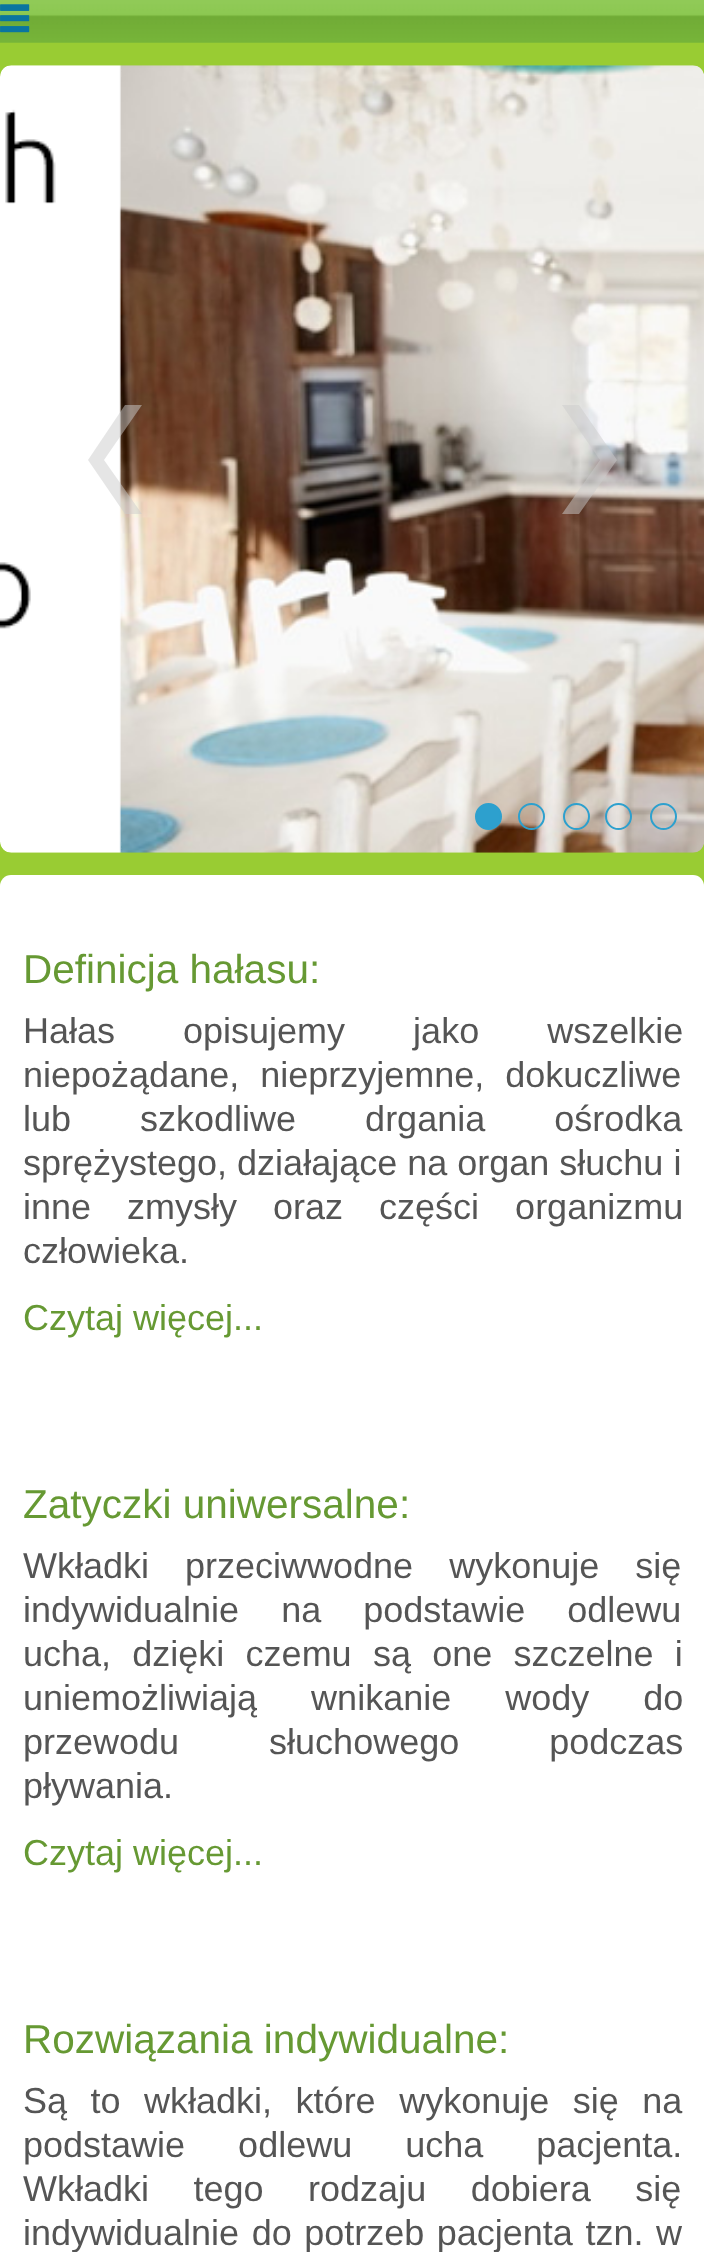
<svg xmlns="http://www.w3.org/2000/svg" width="704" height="2252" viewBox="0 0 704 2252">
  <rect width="100%" height="100%" fill="#9c3"/>
  <image x="0" y="0" width="704" height="43" href="img/1.png"/>
  <image x="0" y="4" width="30" height="29" href="img/2.png"/>
  <image x="0" y="65" width="704" height="788" href="img/3.png"/>
  <path d="M88 460L125 405H142L104 460L142 514H125Z" fill="#cccccc80"/>
  <path d="M617 460L579 405H562L600 460L562 514H579Z" fill="#cccccc80"/>
  <circle cx="488.5" cy="816.5" r="12.5" fill="#2da0ce" stroke="#2da0ce" stroke-width="2"/>
  <circle cx="531.5" cy="816.5" r="12.5" fill="none" stroke="#2da0ce" stroke-width="2"/>
  <circle cx="576.5" cy="816.5" r="12.5" fill="none" stroke="#2da0ce" stroke-width="2"/>
  <circle cx="618.5" cy="816.5" r="12.5" fill="none" stroke="#2da0ce" stroke-width="2"/>
  <circle cx="663.5" cy="816.5" r="12.5" fill="none" stroke="#2da0ce" stroke-width="2"/>
  <rect y="875" width="704" height="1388" rx="11" fill="#fff"/>
  <text x="23" y="983" font-family="Liberation Sans" font-size="40.5" fill="#693">Definicja hałasu:</text>
  <g font-family="Liberation Sans" font-size="36" fill="#555">
    <text x="23" y="1043" word-spacing="58">Hałas opisujemy jako wszelkie</text>
    <text x="23" y="1087" word-spacing="11">niepożądane, nieprzyjemne, dokuczliwe</text>
    <text x="23" y="1131" word-spacing="59">lub szkodliwe drgania ośrodka</text>
    <text x="23" y="1175">sprężystego, działające na organ słuchu i</text>
    <text x="23" y="1219" word-spacing="26">inne zmysły oraz części organizmu</text>
    <text x="23" y="1263">człowieka.</text>
  </g>
  <text x="23" y="1330" font-family="Liberation Sans" font-size="36" fill="#693">Czytaj więcej...</text>
  <text x="23" y="1518" font-family="Liberation Sans" font-size="40.5" fill="#693">Zatyczki uniwersalne:</text>
  <g font-family="Liberation Sans" font-size="36" fill="#555">
    <text x="23" y="1578" word-spacing="26">Wkładki przeciwwodne wykonuje się</text>
    <text x="23" y="1622" word-spacing="32">indywidualnie na podstawie odlewu</text>
    <text x="23" y="1666" word-spacing="11.25">ucha, dzięki czemu są one szczelne i</text>
    <text x="23" y="1710" word-spacing="44">uniemożliwiają wnikanie wody do</text>
    <text x="23" y="1754" word-spacing="80">przewodu słuchowego podczas</text>
    <text x="23" y="1798">pływania.</text>
  </g>
  <text x="23" y="1865" font-family="Liberation Sans" font-size="36" fill="#693">Czytaj więcej...</text>
  <text x="23" y="2053" font-family="Liberation Sans" font-size="40.5" fill="#693">Rozwiązania indywidualne:</text>
  <g font-family="Liberation Sans" font-size="36" fill="#555">
    <text x="23" y="2113" word-spacing="13.5">Są to wkładki, które wykonuje się na</text>
    <text x="23" y="2157" word-spacing="43">podstawie odlewu ucha pacjenta.</text>
    <text x="23" y="2201" word-spacing="34.5">Wkładki tego rodzaju dobiera się</text>
    <text x="23" y="2245" word-spacing="2.5">indywidualnie do potrzeb pacjenta tzn. w</text>
  </g>
</svg>
